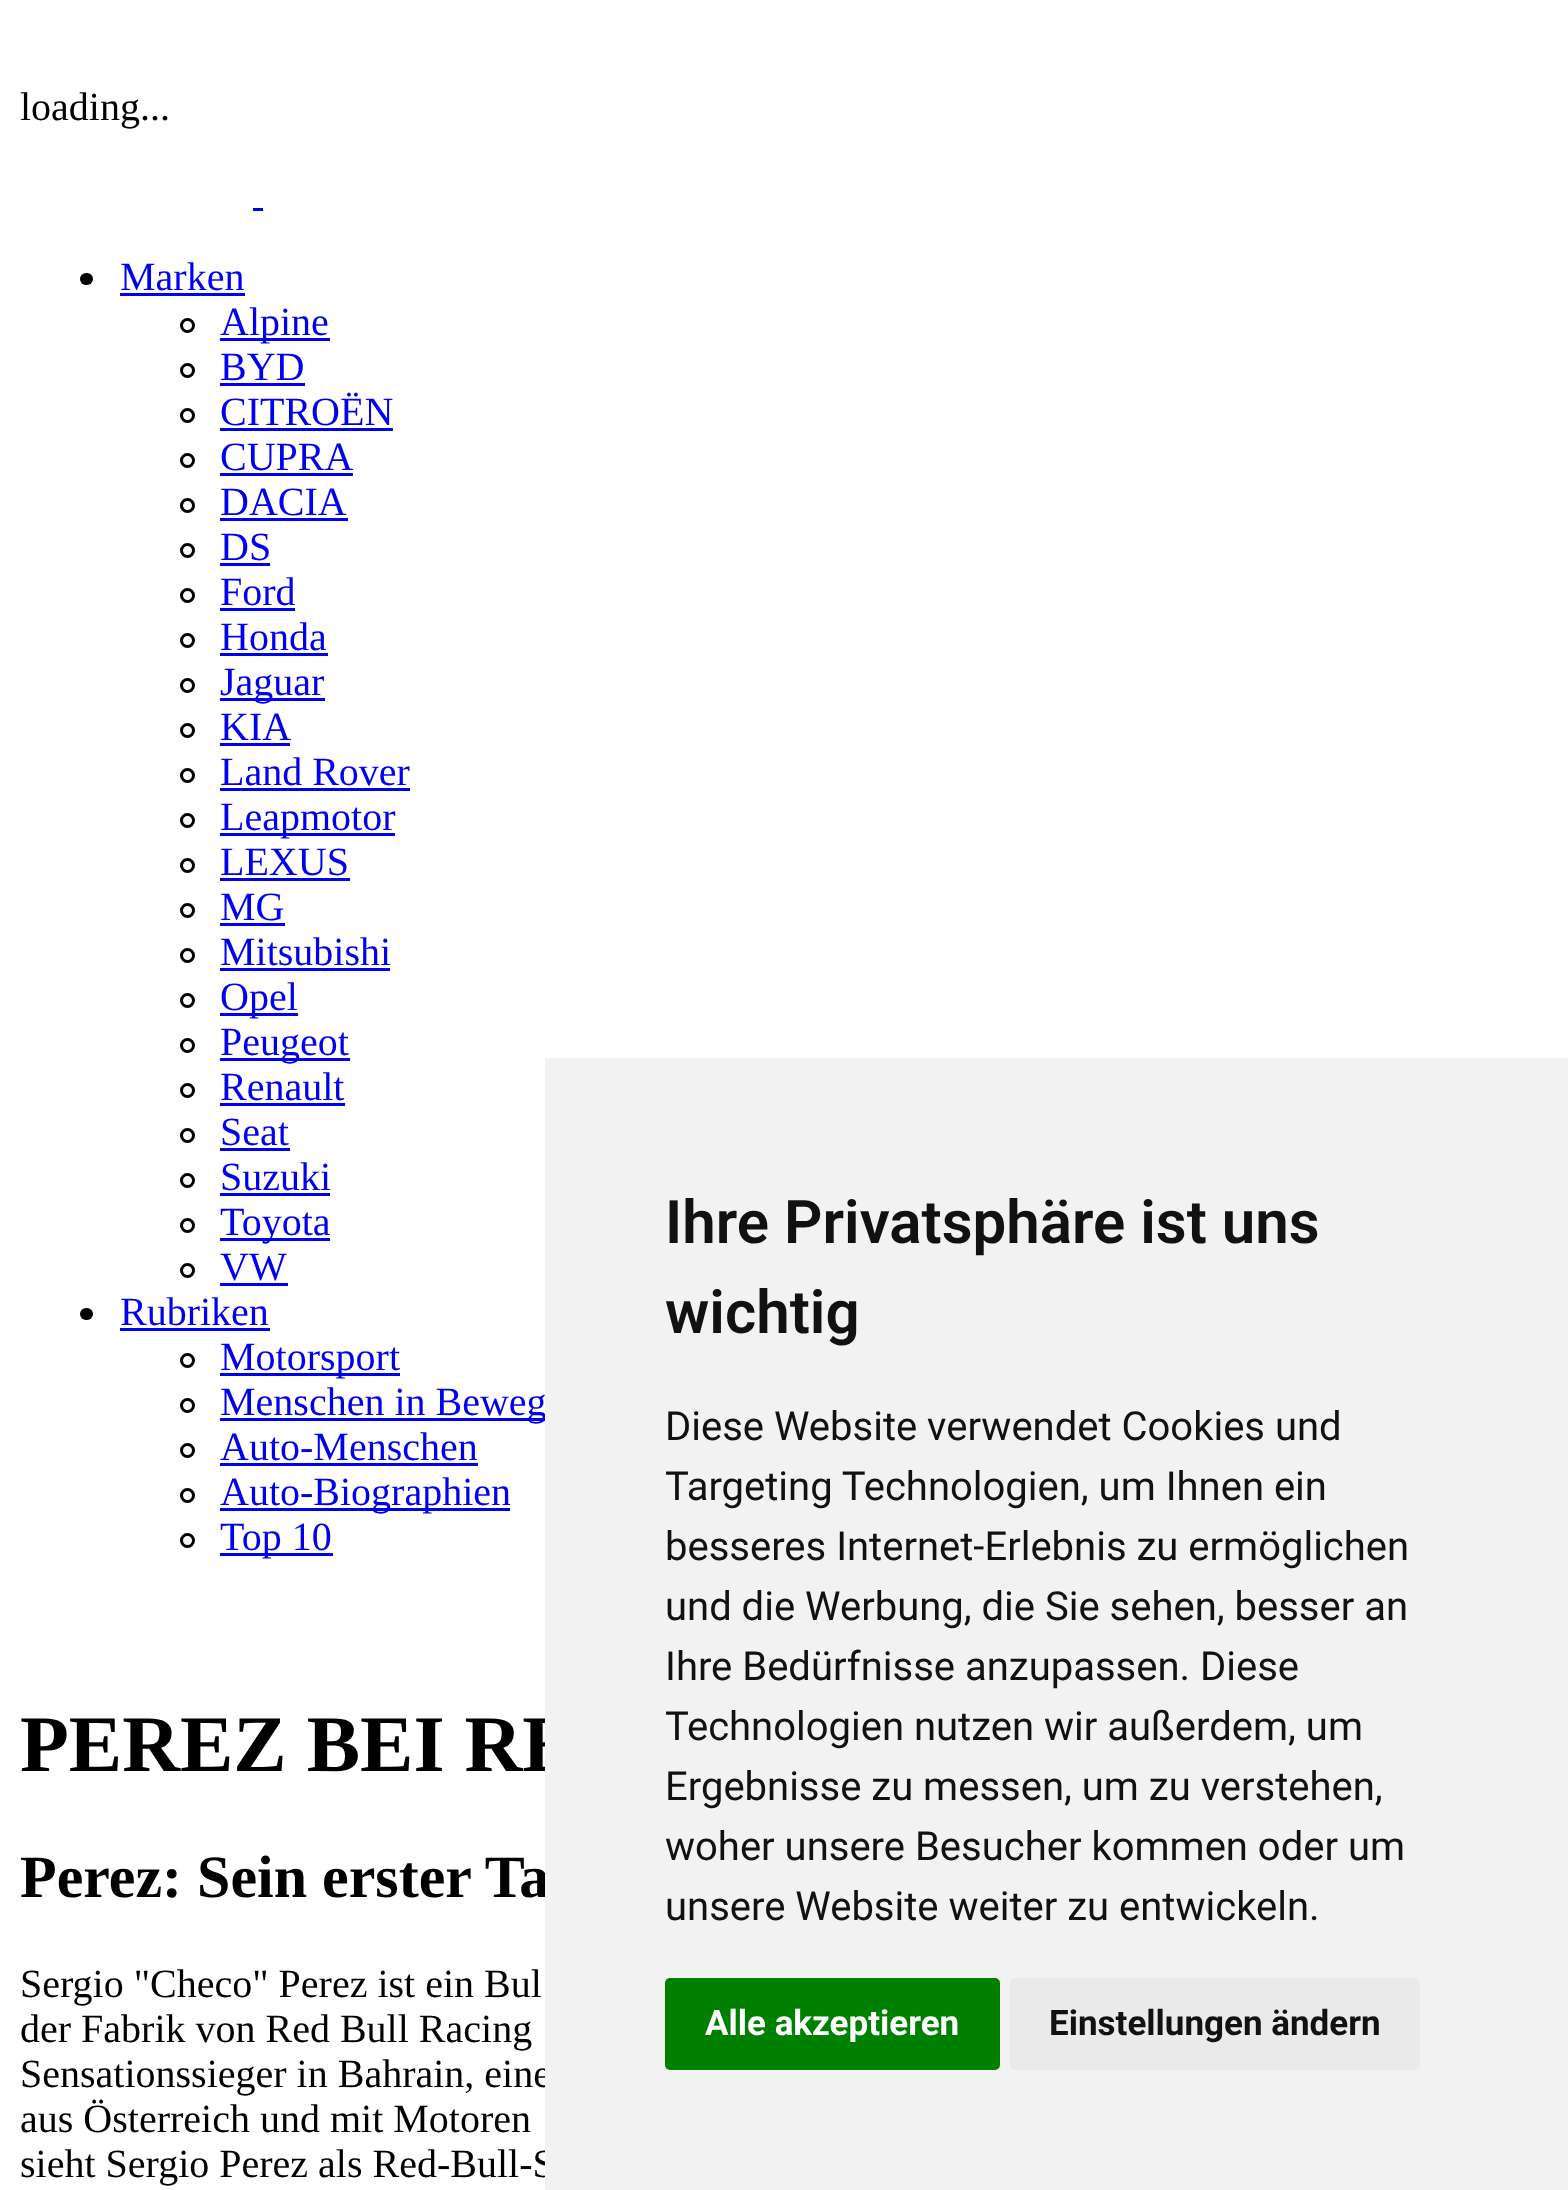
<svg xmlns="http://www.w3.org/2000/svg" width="1568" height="2190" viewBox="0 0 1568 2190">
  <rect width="100%" height="100%" fill="#fff"/>
  <path d="M253 208h10v3H253z" fill="#00e"/>
  <rect x="80" y="273" width="13" height="12" rx="6" fill="#000"/>
  <path d="M120 293h125v3H120z" fill="#00e"/>
  <circle cx="187.5" cy="325.5" r="6" fill="none" stroke="#000" stroke-width="3"/>
  <path d="M220 338h110v3H220z" fill="#00e"/>
  <circle cx="187.5" cy="370.5" r="6" fill="none" stroke="#000" stroke-width="3"/>
  <path d="M220 383h85v3H220z" fill="#00e"/>
  <circle cx="187.5" cy="415.5" r="6" fill="none" stroke="#000" stroke-width="3"/>
  <path d="M220 428h173v3H220z" fill="#00e"/>
  <circle cx="187.5" cy="460.5" r="6" fill="none" stroke="#000" stroke-width="3"/>
  <path d="M220 473h133v3H220z" fill="#00e"/>
  <circle cx="187.5" cy="505.5" r="6" fill="none" stroke="#000" stroke-width="3"/>
  <path d="M220 518h128v3H220z" fill="#00e"/>
  <circle cx="187.5" cy="550.5" r="6" fill="none" stroke="#000" stroke-width="3"/>
  <path d="M220 563h50v3H220z" fill="#00e"/>
  <circle cx="187.5" cy="595.5" r="6" fill="none" stroke="#000" stroke-width="3"/>
  <path d="M220 608h75v3H220z" fill="#00e"/>
  <circle cx="187.5" cy="640.5" r="6" fill="none" stroke="#000" stroke-width="3"/>
  <path d="M220 653h108v3H220z" fill="#00e"/>
  <circle cx="187.5" cy="685.5" r="6" fill="none" stroke="#000" stroke-width="3"/>
  <path d="M220 698h105v3H220z" fill="#00e"/>
  <circle cx="187.5" cy="730.5" r="6" fill="none" stroke="#000" stroke-width="3"/>
  <path d="M220 743h70v3H220z" fill="#00e"/>
  <circle cx="187.5" cy="775.5" r="6" fill="none" stroke="#000" stroke-width="3"/>
  <path d="M220 788h190v3H220z" fill="#00e"/>
  <circle cx="187.5" cy="820.5" r="6" fill="none" stroke="#000" stroke-width="3"/>
  <path d="M220 833h175v3H220z" fill="#00e"/>
  <circle cx="187.5" cy="865.5" r="6" fill="none" stroke="#000" stroke-width="3"/>
  <path d="M220 878h130v3H220z" fill="#00e"/>
  <circle cx="187.5" cy="910.5" r="6" fill="none" stroke="#000" stroke-width="3"/>
  <path d="M220 923h65v3H220z" fill="#00e"/>
  <circle cx="187.5" cy="955.5" r="6" fill="none" stroke="#000" stroke-width="3"/>
  <path d="M220 968h170v3H220z" fill="#00e"/>
  <circle cx="187.5" cy="1000.5" r="6" fill="none" stroke="#000" stroke-width="3"/>
  <path d="M220 1013h78v3H220z" fill="#00e"/>
  <circle cx="187.5" cy="1045.5" r="6" fill="none" stroke="#000" stroke-width="3"/>
  <path d="M220 1058h130v3H220z" fill="#00e"/>
  <circle cx="187.5" cy="1090.5" r="6" fill="none" stroke="#000" stroke-width="3"/>
  <path d="M220 1103h125v3H220z" fill="#00e"/>
  <circle cx="187.5" cy="1135.5" r="6" fill="none" stroke="#000" stroke-width="3"/>
  <path d="M220 1148h70v3H220z" fill="#00e"/>
  <circle cx="187.5" cy="1180.5" r="6" fill="none" stroke="#000" stroke-width="3"/>
  <path d="M220 1193h110v3H220z" fill="#00e"/>
  <circle cx="187.5" cy="1225.5" r="6" fill="none" stroke="#000" stroke-width="3"/>
  <path d="M220 1238h110v3H220z" fill="#00e"/>
  <circle cx="187.5" cy="1270.5" r="6" fill="none" stroke="#000" stroke-width="3"/>
  <path d="M220 1283h68v3H220z" fill="#00e"/>
  <rect x="80" y="1308" width="13" height="12" rx="6" fill="#000"/>
  <path d="M120 1328h150v3H120z" fill="#00e"/>
  <circle cx="187.5" cy="1360.5" r="6" fill="none" stroke="#000" stroke-width="3"/>
  <path d="M220 1373h180v3H220z" fill="#00e"/>
  <circle cx="187.5" cy="1405.5" r="6" fill="none" stroke="#000" stroke-width="3"/>
  <path d="M220 1418h325v3H220z" fill="#00e"/>
  <circle cx="187.5" cy="1450.5" r="6" fill="none" stroke="#000" stroke-width="3"/>
  <path d="M220 1463h258v3H220z" fill="#00e"/>
  <circle cx="187.5" cy="1495.5" r="6" fill="none" stroke="#000" stroke-width="3"/>
  <path d="M220 1508h290v3H220z" fill="#00e"/>
  <circle cx="187.5" cy="1540.5" r="6" fill="none" stroke="#000" stroke-width="3"/>
  <path d="M220 1553h113v3H220z" fill="#00e"/>
  <text x="20" y="120" font-family="Liberation Serif" font-size="40" fill="#000">loading...</text>
  <g font-family="Liberation Serif" font-size="40" fill="#00e">
    <text x="120" y="290">Marken</text>
    <text x="220" y="335">Alpine</text>
    <text x="220" y="380">BYD</text>
    <text x="220" y="425">CITROËN</text>
    <text x="220" y="470">CUPRA</text>
    <text x="220" y="515">DACIA</text>
    <text x="220" y="560">DS</text>
    <text x="220" y="605">Ford</text>
    <text x="220" y="650">Honda</text>
    <text x="220" y="695">Jaguar</text>
    <text x="220" y="740">KIA</text>
    <text x="220" y="785">Land Rover</text>
    <text x="220" y="830">Leapmotor</text>
    <text x="220" y="875">LEXUS</text>
    <text x="220" y="920">MG</text>
    <text x="220" y="965">Mitsubishi</text>
    <text x="220" y="1010">Opel</text>
    <text x="220" y="1055">Peugeot</text>
    <text x="220" y="1100">Renault</text>
    <text x="220" y="1145">Seat</text>
    <text x="220" y="1190">Suzuki</text>
    <text x="220" y="1235">Toyota</text>
    <text x="220" y="1280">VW</text>
    <text x="120" y="1325">Rubriken</text>
    <text x="220" y="1370">Motorsport</text>
    <text x="220" y="1415">Menschen in Beweg</text>
    <text x="220" y="1460">Auto-Menschen</text>
    <text x="220" y="1505">Auto-Biographien</text>
    <text x="220" y="1550">Top 10</text>
  </g>
  <text x="20" y="1771" font-family="Liberation Serif" font-size="80" font-weight="bold" fill="#000">PEREZ BEI RE</text>
  <text x="20" y="1897" font-family="Liberation Serif" font-size="60" font-weight="bold" fill="#000">Perez: Sein erster Ta</text>
  <g font-family="Liberation Serif" font-size="40" fill="#000">
    <text x="20" y="1997">Sergio "Checo" Perez ist ein Bul</text>
    <text x="20" y="2042">der Fabrik von Red Bull Racing</text>
    <text x="20" y="2087">Sensationssieger in Bahrain, eine</text>
    <text x="20" y="2132">aus Österreich und mit Motoren</text>
    <text x="20" y="2177">sieht Sergio Perez als Red-Bull-S</text>
  </g>
  <path d="M545 1058h1023v1132H545z" fill="#f2f2f2"/>
  <g font-family="Roboto" font-size="60" font-weight="600" fill="#111">
    <text x="665" y="1243">Ihre Privatsphäre ist uns</text>
    <text x="665" y="1333">wichtig</text>
  </g>
  <g font-family="Roboto" font-size="40" fill="#111">
    <text x="665" y="1440">Diese Website verwendet Cookies und</text>
    <text x="665" y="1500">Targeting Technologien, um Ihnen ein</text>
    <text x="665" y="1560">besseres Internet-Erlebnis zu ermöglichen</text>
    <text x="665" y="1620">und die Werbung, die Sie sehen, besser an</text>
    <text x="665" y="1680">Ihre Bedürfnisse anzupassen. Diese</text>
    <text x="665" y="1740">Technologien nutzen wir außerdem, um</text>
    <text x="665" y="1800">Ergebnisse zu messen, um zu verstehen,</text>
    <text x="665" y="1860">woher unsere Besucher kommen oder um</text>
    <text x="665" y="1920">unsere Website weiter zu entwickeln.</text>
  </g>
  <rect x="665" y="1978" width="335" height="92" rx="5" fill="#008000"/>
  <text x="705" y="2035" font-family="Roboto" font-size="35" font-weight="bold" fill="#fff">Alle akzeptieren</text>
  <rect x="1010" y="1978" width="410" height="92" rx="5" fill="#eaeaea"/>
  <text x="1049" y="2035" font-family="Roboto" font-size="35" font-weight="bold" fill="#111">Einstellungen ändern</text>
</svg>
